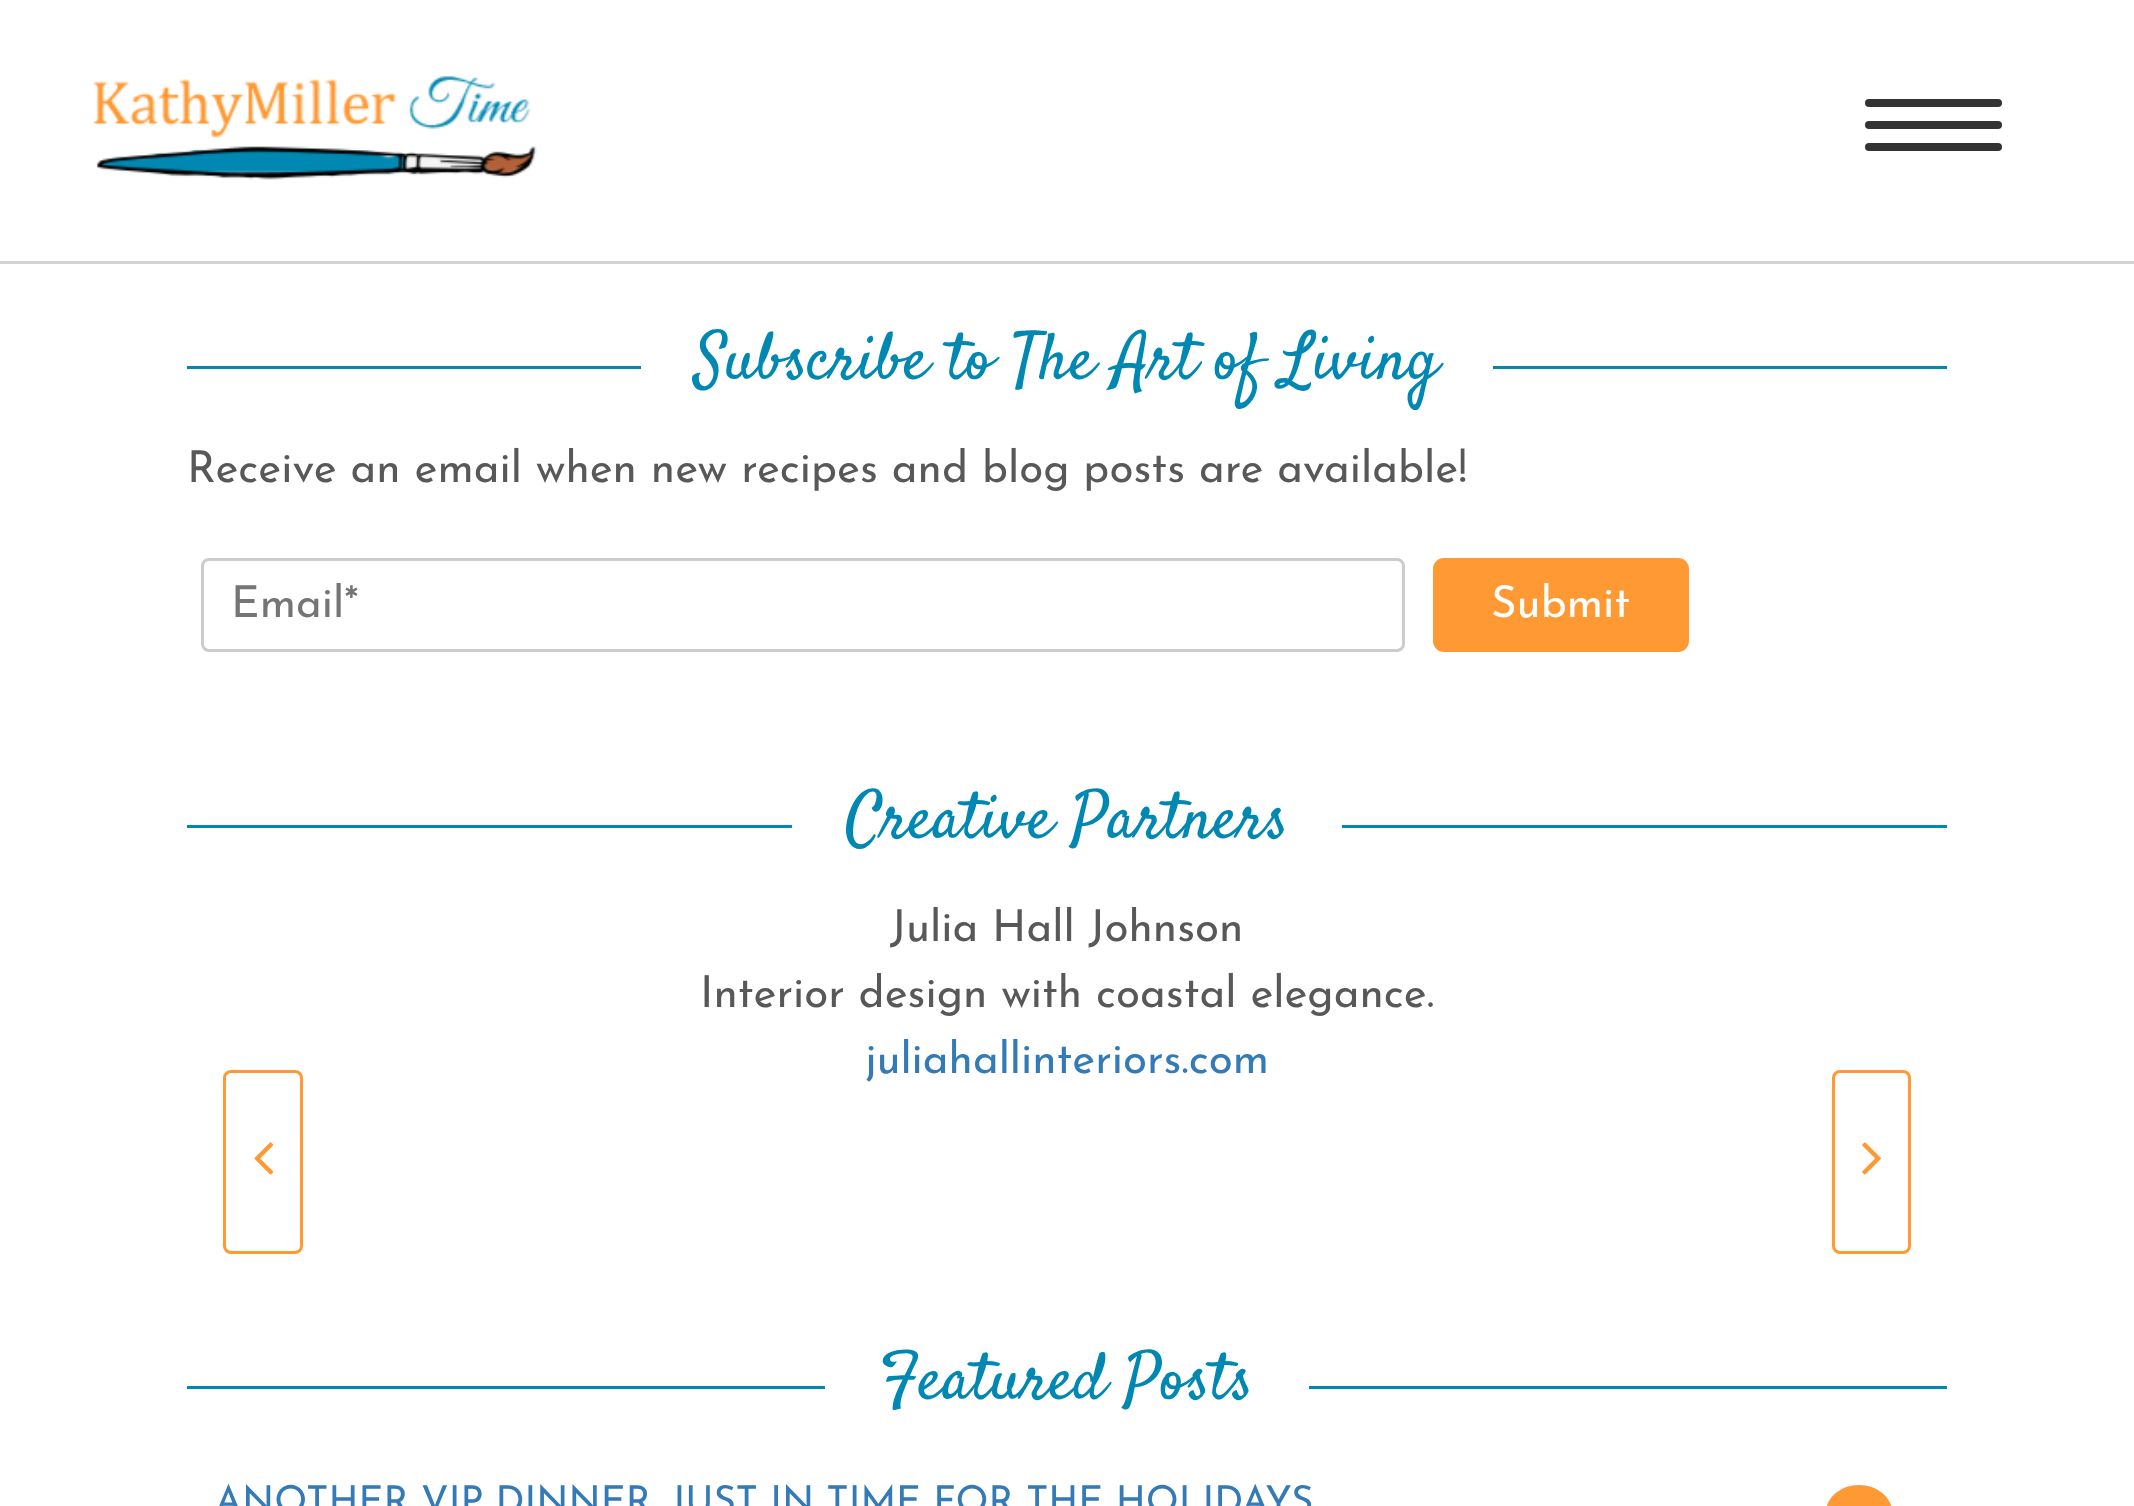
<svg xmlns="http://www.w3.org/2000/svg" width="2134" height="1506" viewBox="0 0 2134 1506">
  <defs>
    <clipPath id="clip1"><path d="M187 316h1760v94H187z"/></clipPath>
    <clipPath id="clip2"><path d="M231 583h1144v44H231z"/></clipPath>
  </defs>
  <rect width="100%" height="100%" fill="#fff"/>
  <path d="M0 261h2134v3H0z" fill="#d3d3d3"/>
  <image x="93" y="76" width="444" height="104" href="img/1.png"/>
  <rect x="1865" y="99" width="137" height="8" rx="4" fill="#333"/>
  <rect x="1865" y="121" width="137" height="8" rx="4" fill="#333"/>
  <rect x="1865" y="143" width="137" height="8" rx="4" fill="#333"/>
  <path d="M187 366h454v3H187z" fill="#0088b2"/>
  <path d="M1493 366h454v3H1493z" fill="#0088b2"/>
  <rect x="202.5" y="559.5" width="1201" height="91" rx="6.5" fill="none" stroke="#ccc" stroke-width="3"/>
  <rect x="1434.5" y="559.5" width="253" height="91" rx="9.5" fill="#f93" stroke="#f93" stroke-width="3"/>
  <path d="M187 825h605v3H187z" fill="#0088b2"/>
  <path d="M1342 825h605v3H1342z" fill="#0088b2"/>
  <rect x="224.5" y="1071.5" width="77" height="181" rx="6.5" fill="none" stroke="#f93" stroke-width="3"/>
  <image x="254" y="1142" width="20" height="33" href="img/2.png"/>
  <rect x="1833.5" y="1071.5" width="76" height="181" rx="6.5" fill="none" stroke="#f93" stroke-width="3"/>
  <image x="1862" y="1142" width="19" height="33" href="img/3.png"/>
  <path d="M187 1386h638v3H187z" fill="#0088b2"/>
  <path d="M1309 1386h638v3H1309z" fill="#0088b2"/>
  <rect x="1826" y="1485" width="66" height="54" rx="33" fill="#f93"/>
  <g clip-path="url(#clip1)">
    <text x="695" y="378" font-family="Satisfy" font-size="66" fill="#0088b2">Subscribe to The Art of Living</text>
  </g>
  <text x="187" y="482" font-family="Josefin Sans" font-size="44" fill="#585858">Receive an email when new recipes and blog posts are available!</text>
  <g clip-path="url(#clip2)">
    <text x="231" y="617" font-family="Josefin Sans" font-size="44" fill="#757575">Email*</text>
  </g>
  <text x="1491" y="617" font-family="Josefin Sans" font-size="44" fill="#fff">Submit</text>
  <text x="846" y="837" font-family="Satisfy" font-size="66" fill="#0088b2">Creative Partners</text>
  <g font-family="Josefin Sans" font-size="44" fill="#585858">
    <text x="890" y="941">Julia Hall Johnson</text>
    <text x="700" y="1007">Interior design with coastal elegance.</text>
  </g>
  <text x="865" y="1073" font-family="Josefin Sans" font-size="44" fill="#337ab7">juliahallinteriors.com</text>
  <text x="880" y="1398" font-family="Satisfy" font-size="66" fill="#0088b2">Featured Posts</text>
  <text x="215" y="1513" font-family="Josefin Sans" font-size="38.5" fill="#337ab7">ANOTHER VIP DINNER, JUST IN TIME FOR THE HOLIDAYS</text>
</svg>
